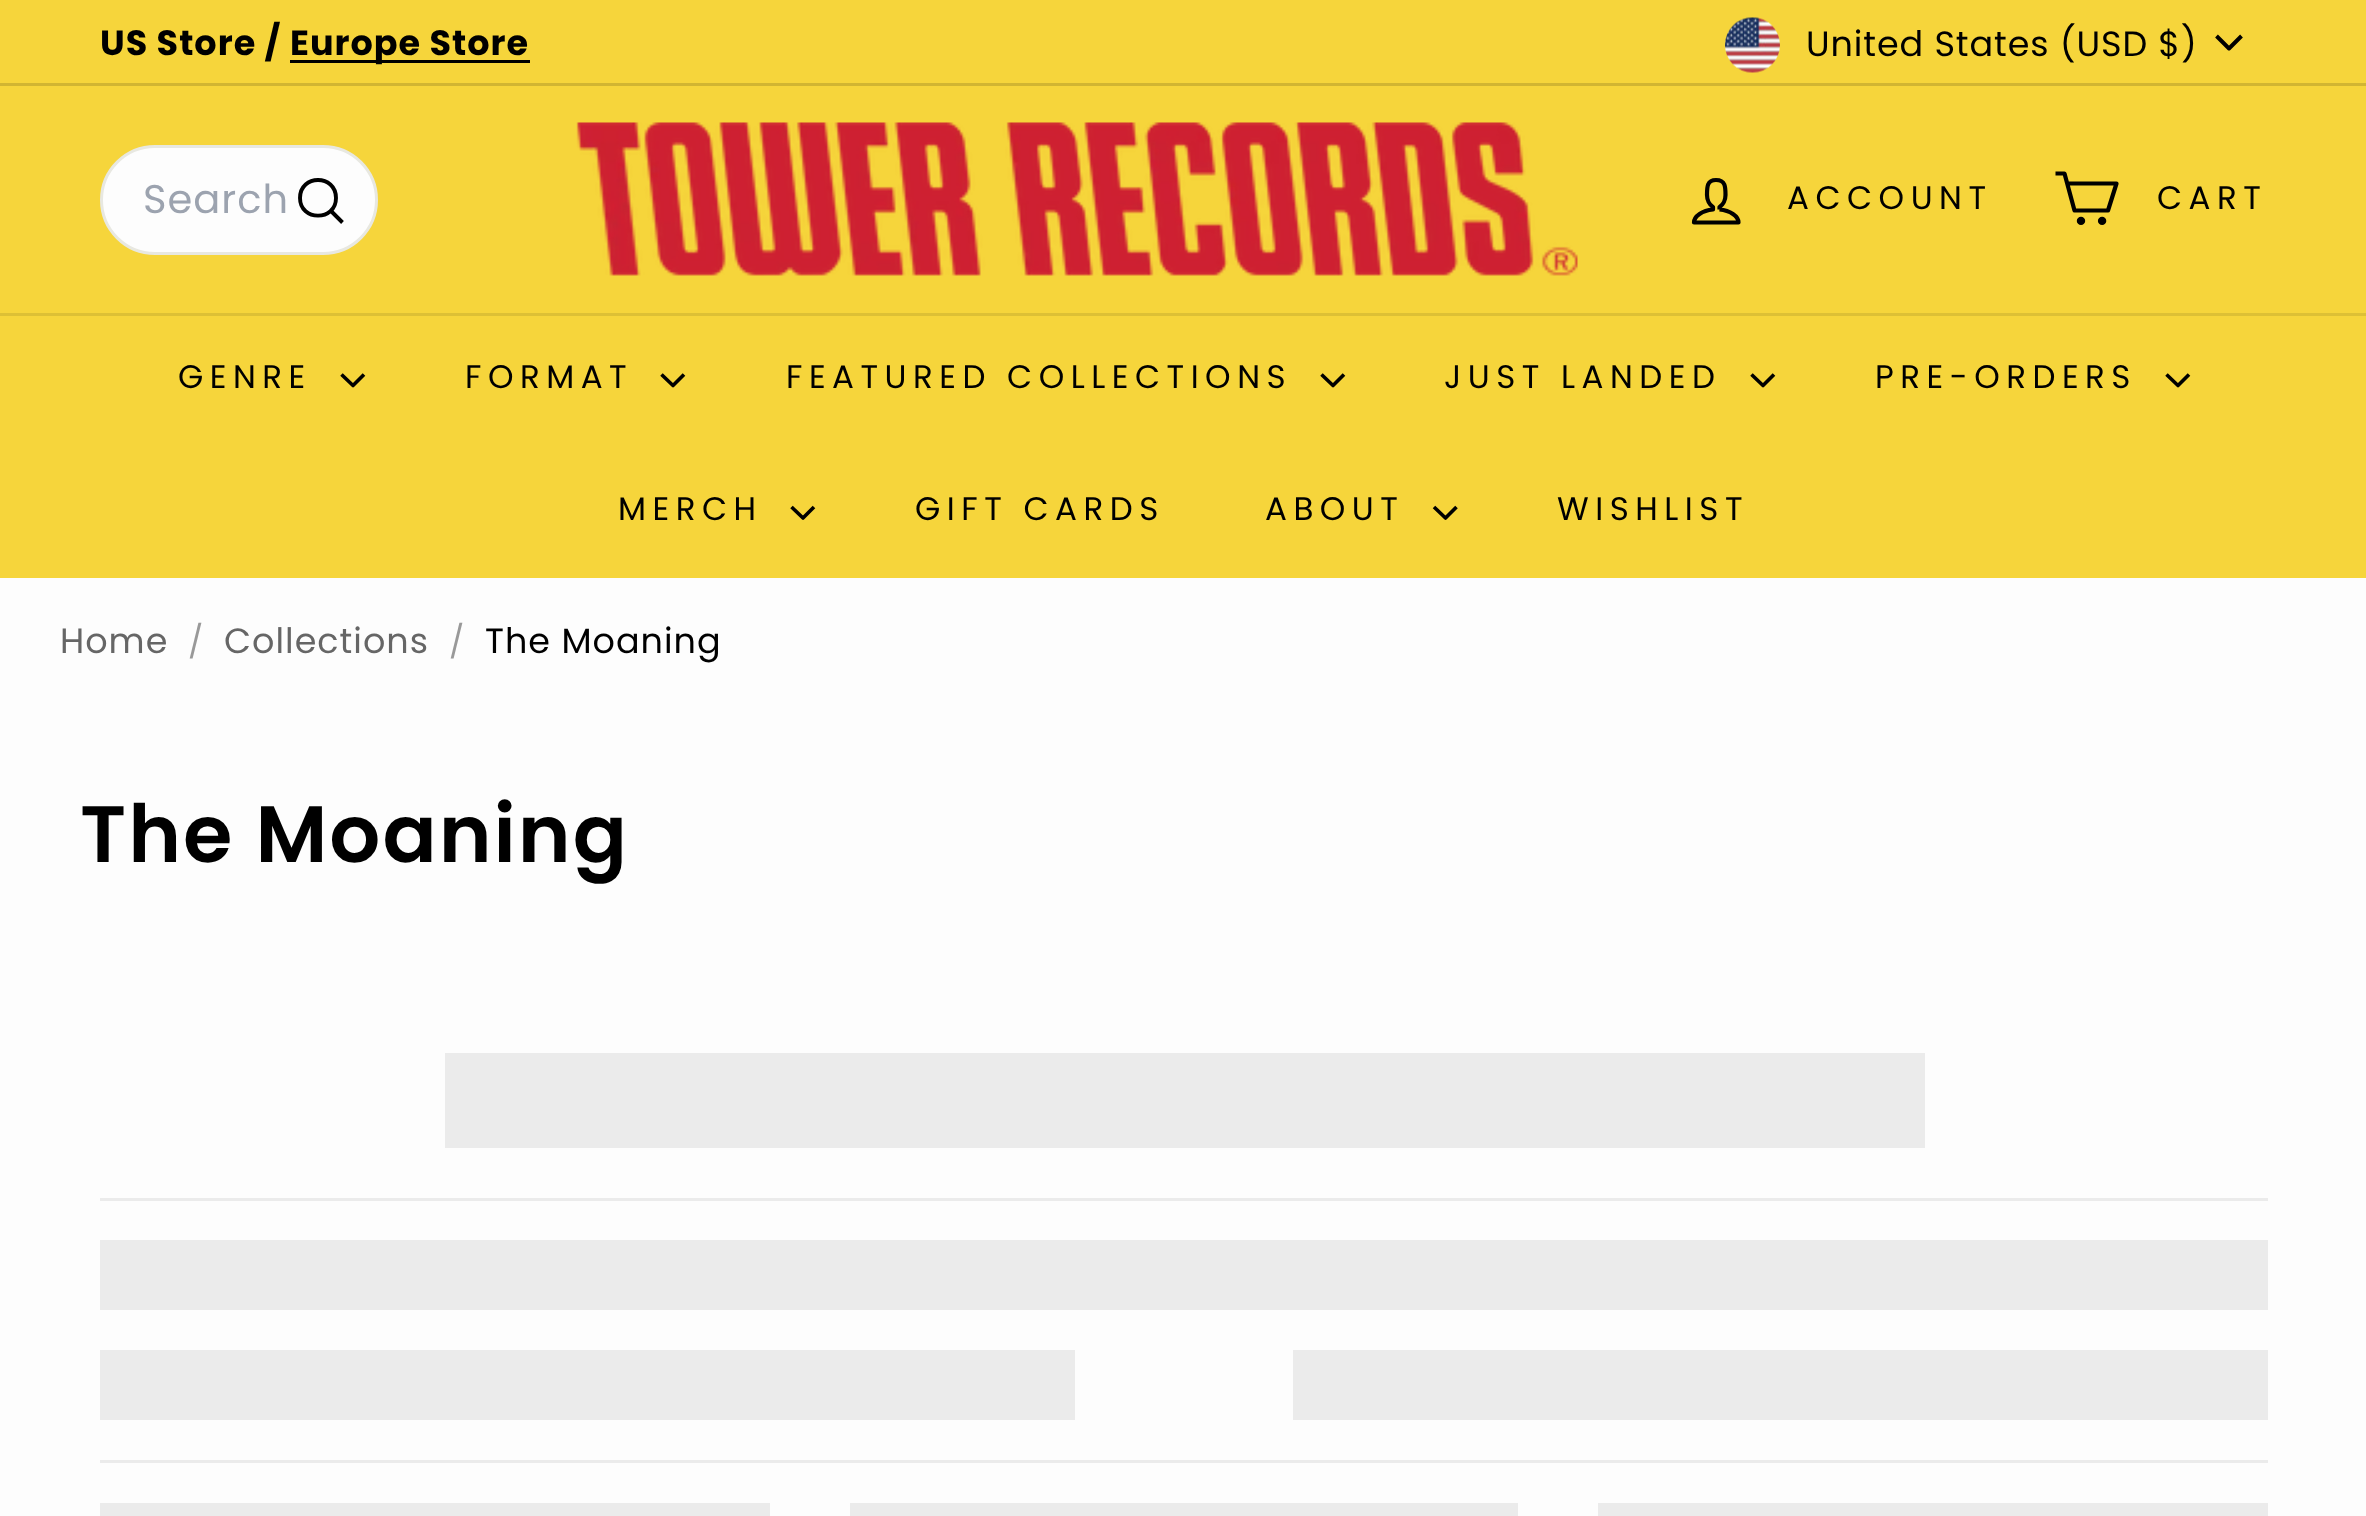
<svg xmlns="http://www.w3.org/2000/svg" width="2366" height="1516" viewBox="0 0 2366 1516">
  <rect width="100%" height="100%" fill="#fdfdfd"/>
  <path d="M0 0h2366v83H0z" fill="#f6d53b"/>
  <path d="M290 60h240v3H290z" fill="#000"/>
  <image x="1725" y="17" width="55" height="56" href="img/1.png"/>
  <path d="M2216.5 36L2229 48.5L2241.5 36" fill="none" stroke="#000" stroke-width="3.9" stroke-linejoin="round"/>
  <path d="M0 83h2366v3H0z" fill="#d1b532"/>
  <path d="M0 86h2366v227H0z" fill="#f6d53b"/>
  <rect x="101.5" y="146.5" width="275" height="107" rx="53.5" fill="#fdfdfd" stroke="#e8e8e1" stroke-width="3"/>
  <path d="M336 198C336 221.5 300 221.5 300 198C300 174 336 174 336 198M342.5 222.5L331 211" fill="none" stroke="#000" stroke-width="3.9" stroke-linejoin="round"/>
  <image x="576" y="122" width="1002" height="154" href="img/2.png"/>
  <path d="M1719.5 209.5V207C1723 205 1725.5 200 1725.5 195C1725.5 187 1725.5 180 1716 180C1707 180 1707 187 1707 195C1707 200 1709.5 205 1713 207V209.5C1702.5 210.5 1694 216 1694 222.5H1738.5C1738.5 216 1730 210.5 1719.5 209.5" fill="none" stroke="#000" stroke-width="4.2" stroke-linejoin="round"/>
  <path d="M2067.5 183.5H2116.5L2108 210.5H2074.5L2064.5 173.5H2055.5" fill="none" stroke="#000" stroke-width="4.2" stroke-linejoin="round"/>
  <circle cx="2081" cy="220.9" r="2.1" fill="none" stroke="#000" stroke-width="4.2"/>
  <circle cx="2102.1" cy="220.9" r="2.1" fill="none" stroke="#000" stroke-width="4.2"/>
  <path d="M0 316h2366v262H0z" fill="#f6d53b"/>
  <path d="M0 313h2366v3H0z" fill="#ddc035"/>
  <path d="M341.5 374.5L353 385.5L364 374.5" fill="none" stroke="#000" stroke-width="3.6" stroke-linejoin="round"/>
  <path d="M661.5 374.5L673 385.5L684 374.5" fill="none" stroke="#000" stroke-width="3.6" stroke-linejoin="round"/>
  <path d="M1321.5 374.5L1333 385.5L1344 374.5" fill="none" stroke="#000" stroke-width="3.6" stroke-linejoin="round"/>
  <path d="M1751.5 374.5L1763 385.5L1774 374.5" fill="none" stroke="#000" stroke-width="3.6" stroke-linejoin="round"/>
  <path d="M2166.5 374.5L2178 385.5L2189 374.5" fill="none" stroke="#000" stroke-width="3.6" stroke-linejoin="round"/>
  <path d="M791.5 507L803 518L814 507" fill="none" stroke="#000" stroke-width="3.6" stroke-linejoin="round"/>
  <path d="M1434 507L1445.5 518L1456.5 507" fill="none" stroke="#000" stroke-width="3.6" stroke-linejoin="round"/>
  <path d="M445 1053h1480v95H445z" fill="#ebebeb"/>
  <path d="M100 1198h2168v3H100z" fill="#ebebeb"/>
  <path d="M100 1460h2168v3H100z" fill="#ebebeb"/>
  <path d="M100 1240h2168v70H100z" fill="#ebebeb"/>
  <path d="M100 1350h975v70H100z" fill="#ebebeb"/>
  <path d="M1293 1350h975v70H1293z" fill="#ebebeb"/>
  <path d="M100 1503h670v13H100z" fill="#ebebeb"/>
  <path d="M850 1503h668v13H850z" fill="#ebebeb"/>
  <path d="M1598 1503h670v13H1598z" fill="#ebebeb"/>
  <g font-family="Poppins" font-size="35" font-weight="bold" letter-spacing="1" fill="#000">
    <text x="100" y="55">US Store /</text>
    <text x="290" y="55">Europe Store</text>
  </g>
  <text x="1806" y="56" font-family="Poppins" font-size="35" letter-spacing="0.9" fill="#000">United States (USD $)</text>
  <text x="143" y="213" font-family="Poppins" font-size="40" letter-spacing="1" fill="#9ca3af">Search</text>
  <g font-family="Poppins" font-size="32.5" letter-spacing="6.5" fill="#000">
    <text x="1787" y="209">ACCOUNT</text>
    <text x="2157" y="209">CART</text>
    <text x="178" y="388">GENRE</text>
    <text x="465" y="388">FORMAT</text>
    <text x="786" y="388">FEATURED COLLECTIONS</text>
    <text x="1444" y="388">JUST LANDED</text>
    <text x="1875" y="388">PRE-ORDERS</text>
    <text x="618" y="520">MERCH</text>
    <text x="915" y="520">GIFT CARDS</text>
    <text x="1265" y="520">ABOUT</text>
    <text x="1557" y="520">WISHLIST</text>
  </g>
  <text x="60" y="653" font-family="Poppins" font-size="35" letter-spacing="1" fill="#666">Home</text>
  <text x="188" y="653" font-family="Poppins" font-size="32" letter-spacing="1" fill="#999">/</text>
  <text x="224" y="653" font-family="Poppins" font-size="35" letter-spacing="1" fill="#666">Collections</text>
  <text x="449" y="653" font-family="Poppins" font-size="32" letter-spacing="1" fill="#999">/</text>
  <text x="485" y="653" font-family="Poppins" font-size="35" letter-spacing="1" fill="#000">The Moaning</text>
  <text x="80" y="862" font-family="Poppins" font-size="80" font-weight="600" letter-spacing="2" fill="#000">The Moaning</text>
</svg>
